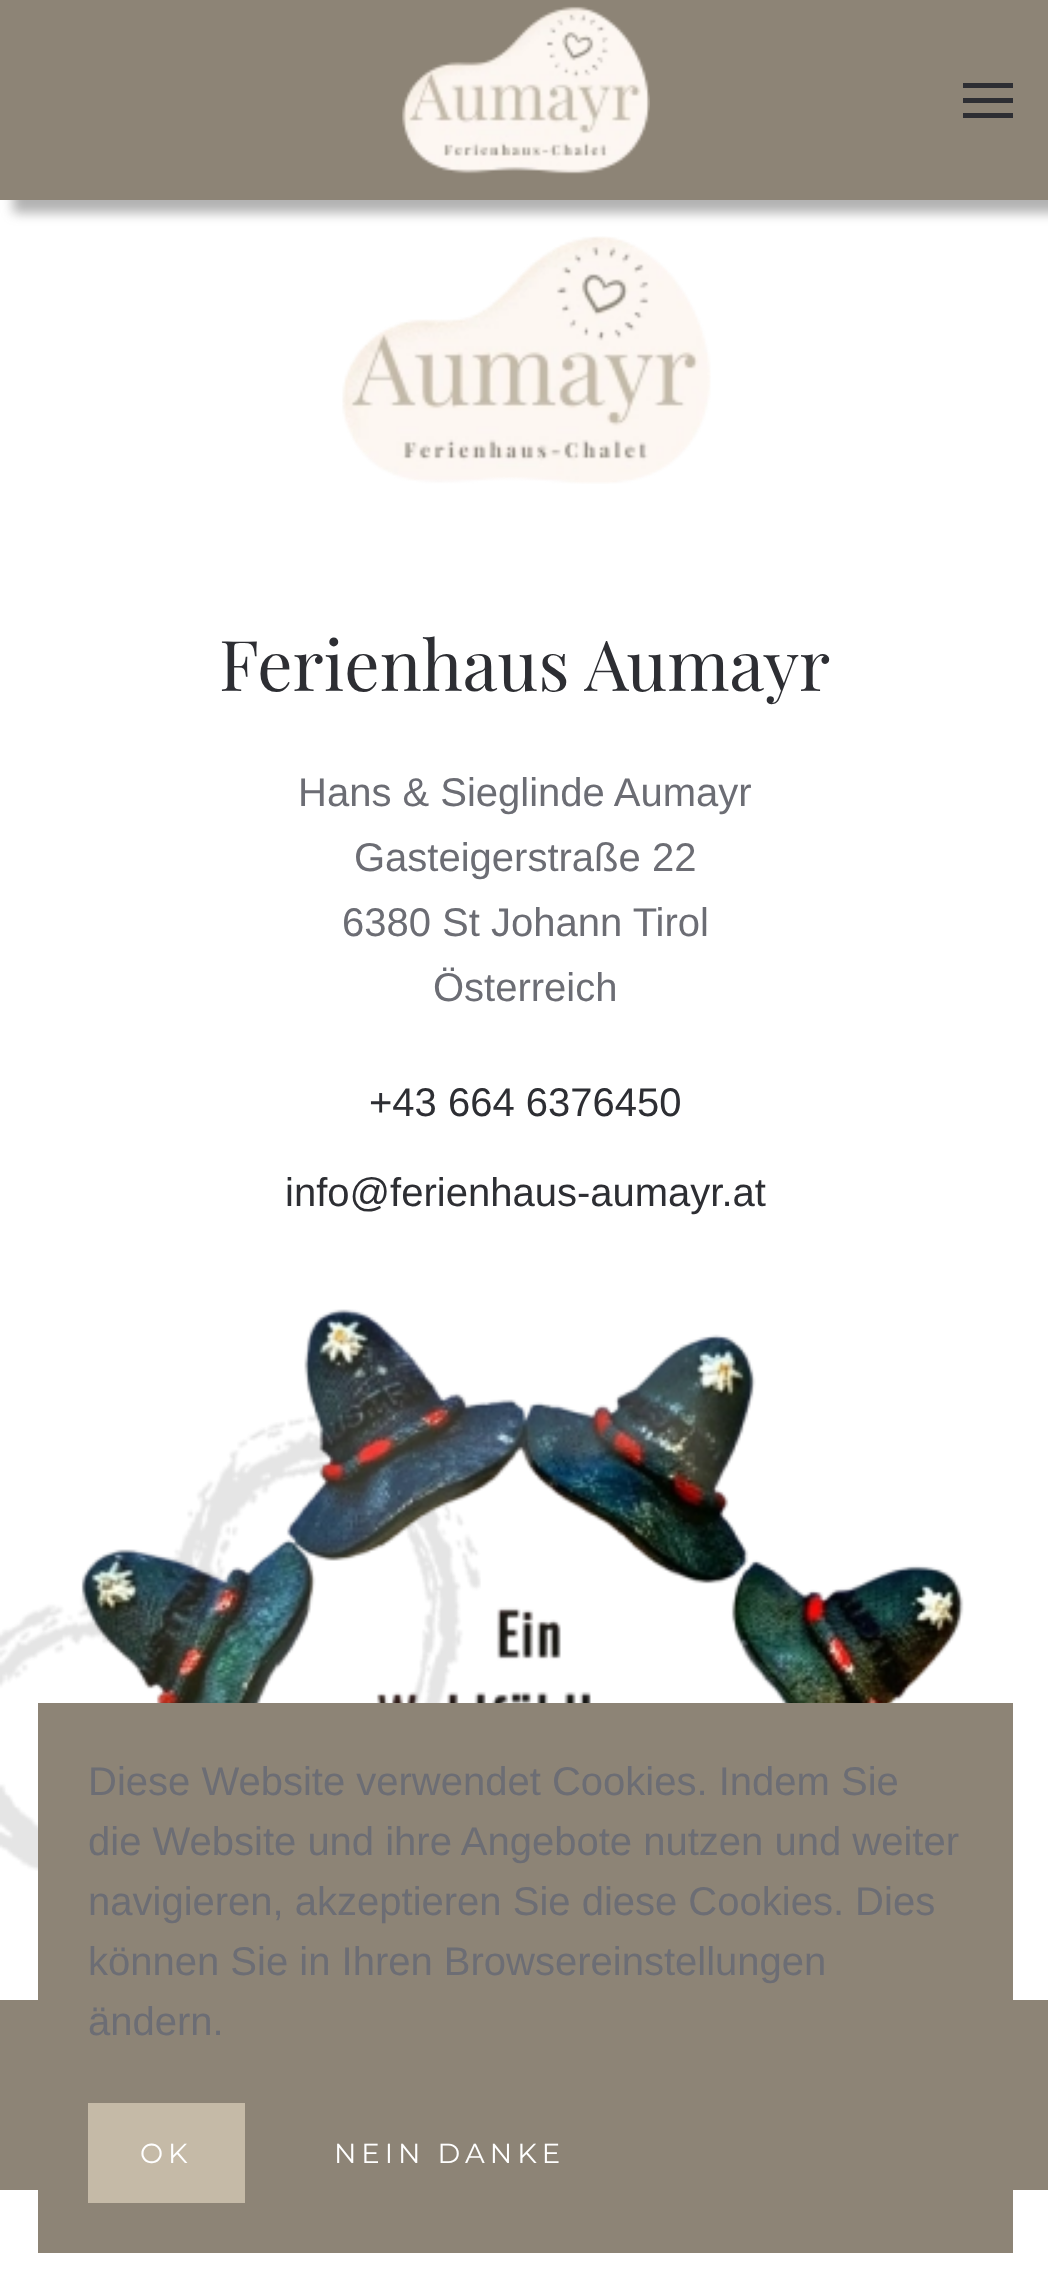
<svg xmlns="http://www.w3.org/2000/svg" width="1048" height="2289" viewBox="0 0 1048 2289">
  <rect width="100%" height="100%" fill="#fff"/>
  <path d="M13 13h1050v200H13z" fill="#6161617d" filter="blur(6px)"/>
  <path d="M0 0h1048v200H0z" fill="#8d8476"/>
  <image x="402" y="6" width="248" height="168" href="img/1.png"/>
  <path d="M963 83h50v5H963z" fill="#2d2e33"/>
  <path d="M963 98h50v5H963z" fill="#2d2e33"/>
  <path d="M963 113h50v5H963z" fill="#2d2e33"/>
  <image x="0" y="1414" width="481" height="457" href="img/2.png"/>
  <image x="342" y="236" width="369" height="248" href="img/3.png"/>
  <image x="81" y="1309" width="883" height="394" href="img/4.png"/>
  <path d="M0 2000h1048v190H0z" fill="#8d8476"/>
  <path d="M38 1703h975v550H38z" fill="#8d8476"/>
  <path d="M88 2103h157v100H88z" fill="#c5baa7"/>
  <text x="219" y="691" font-family="Playfair Display" font-size="70" fill="#2d2e33">Ferienhaus Aumayr</text>
  <g font-family="Liberation Sans" font-size="40" fill="#6c6d74">
    <text x="298" y="806">Hans &amp; Sieglinde Aumayr</text>
    <text x="354" y="871">Gasteigerstraße 22</text>
    <text x="342" y="936">6380 St Johann Tirol</text>
    <text x="433" y="1001">Österreich</text>
  </g>
  <g font-family="Liberation Sans" font-size="40" fill="#2d2e33">
    <text x="369" y="1116">+43 664 6376450</text>
    <text x="285" y="1206">info@ferienhaus-aumayr.at</text>
  </g>
  <g font-family="Liberation Sans" font-size="40" fill="#6c6d74">
    <text x="88" y="1795">Diese Website verwendet Cookies. Indem Sie</text>
    <text x="88" y="1855">die Website und ihre Angebote nutzen und weiter</text>
    <text x="88" y="1915">navigieren, akzeptieren Sie diese Cookies. Dies</text>
    <text x="88" y="1975">können Sie in Ihren Browsereinstellungen</text>
    <text x="88" y="2035">ändern.</text>
  </g>
  <g font-family="Montserrat" font-size="27.5" font-weight="100" letter-spacing="5" fill="#fff">
    <text x="140" y="2163">OK</text>
    <text x="334" y="2163">NEIN DANKE</text>
  </g>
</svg>
